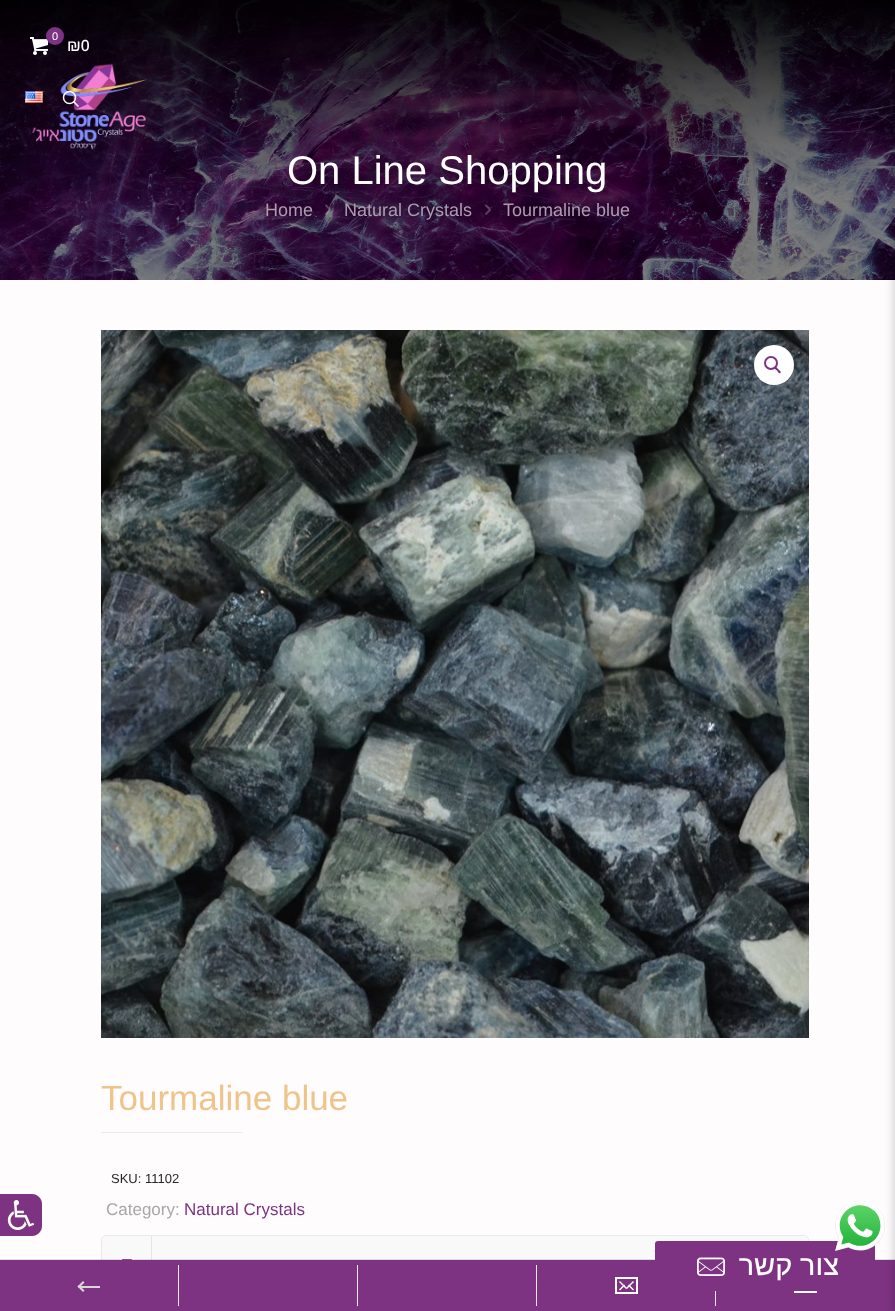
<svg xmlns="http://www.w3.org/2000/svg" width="895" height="1311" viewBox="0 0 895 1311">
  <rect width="100%" height="100%" fill="#fefcfd"/>
  <path d="M0 1194H32C37.5 1194 42 1198.5 42 1204V1226C42 1231.5 37.5 1236 32 1236H0Z" fill="#7d3382"/>
  <image x="7" y="1200" width="28" height="30" href="img/1.png"/>
  <image x="0" y="0" width="895" height="280" href="img/2.png"/>
  <image x="30" y="37" width="18" height="18" href="img/3.png"/>
  <circle cx="55" cy="36" r="9" fill="#7d3382"/>
  <image x="32" y="63" width="115" height="87" href="img/5.png"/>
  <image x="25" y="91" width="18" height="12" href="img/4.png"/>
  <circle cx="69.5" cy="97.5" r="6" fill="none" stroke="#fff" stroke-width="1.5"/>
  <path d="M73.5 101.5L78.5 106.5" fill="none" stroke="#fff" stroke-width="1.5"/>
  <image x="325" y="204" width="6" height="11" href="img/6.png"/>
  <image x="485" y="204" width="6" height="11" href="img/7.png"/>
  <image x="101" y="330" width="708" height="708" href="img/8.png"/>
  <circle cx="774" cy="365" r="20" fill="#fff"/>
  <circle cx="771" cy="363" r="6" fill="none" stroke="#7d3382" stroke-width="2"/>
  <path d="M774.5 367C776 366 777.5 368.5 778.5 369.5C779 370 781.5 371.5 780.5 373C779 374 777.5 371.5 777 370.5C776.5 370 773.5 368.5 774.5 367Z" fill="#7d3382"/>
  <path d="M101 1132h141v1H101z" fill="#eae8e9"/>
  <rect x="101.5" y="1235.5" width="707" height="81" rx="4.5" fill="none" stroke="#eae8e9"/>
  <path d="M106 1236H804C806 1236 808 1238 808 1240V1289H102V1240C102 1238 104 1236 106 1236Z" fill="#f9f9f9"/>
  <image x="122" y="1259" width="10" height="1" href="img/9.png"/>
  <path d="M151 1236h1v24H151z" fill="#e5e5e5"/>
  <path d="M-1 1259h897v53H-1z" fill="#0000001f" filter="blur(0.5px)"/>
  <path d="M0 1260h895v51H0z" fill="#7d3382"/>
  <path d="M894 -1h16v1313H894z" fill="#00000033" filter="blur(5px)"/>
  <rect x="655" y="1241" width="220" height="50" rx="3" fill="#7d3382"/>
  <image x="835" y="1201" width="50" height="50" href="img/10.png"/>
  <path d="M79 1286h21v2H79z" fill="#d7d7d7"/>
  <path d="M77.5 1286.5L83 1281L84.5 1282.5L79 1288Z" fill="#d7d7d7"/>
  <path d="M79 1285L84.5 1290.5L83 1292L77.5 1286.5Z" fill="#d7d7d7"/>
  <path d="M178 1265h1v41H178z" fill="#ebebeb"/>
  <path d="M357 1265h1v41H357z" fill="#ebebeb"/>
  <path d="M536 1265h1v41H536z" fill="#ebebeb"/>
  <path d="M616 1278h21v15H616z" fill="none" stroke="#fff" stroke-width="2"/>
  <path d="M624 1284.5L625 1285.5L620 1290.5L619 1289.5Z" fill="#fff"/>
  <path d="M619 1282L620 1281L627 1288L626 1289Z" fill="#fff"/>
  <path d="M633 1281L634 1282L627 1289L626 1288Z" fill="#fff"/>
  <path d="M628 1285.5L629 1284.5L634 1289.5L633 1290.5Z" fill="#fff"/>
  <path d="M715 1291h1v15H715z" fill="#ebebeb"/>
  <path d="M794 1291h23v2H794z" fill="#fff"/>
  <image x="697" y="1257" width="28" height="19" href="img/11.png"/>
  <text x="52" y="40" font-family="Arimo" font-size="11" fill="#fff">0</text>
  <text x="67" y="51" font-family="Arimo" font-size="16" font-weight="500" fill="#fff">₪0</text>
  <text x="287" y="184" font-family="Arimo" font-size="40" fill="#fff">On Line Shopping</text>
  <g font-family="Arimo" font-size="18" fill="#ab9cae">
    <text x="265" y="216">Home</text>
    <text x="344" y="216">Natural Crystals</text>
    <text x="503" y="216">Tourmaline blue</text>
  </g>
  <text x="101" y="1110" font-family="Arimo" font-size="35" fill="#eec48b">Tourmaline blue</text>
  <text x="111" y="1183" font-family="Arimo" font-size="13" fill="#282828">SKU: 11102</text>
  <text x="106" y="1215" font-family="Arimo" font-size="17" fill="#a8a8a8">Category:</text>
  <text x="184" y="1215" font-family="Arimo" font-size="17" fill="#7d3382">Natural Crystals</text>
  <text x="839" y="1275" font-family="Arimo" font-size="28" font-weight="500" direction="rtl" fill="#fff">צור קשר</text>
</svg>
